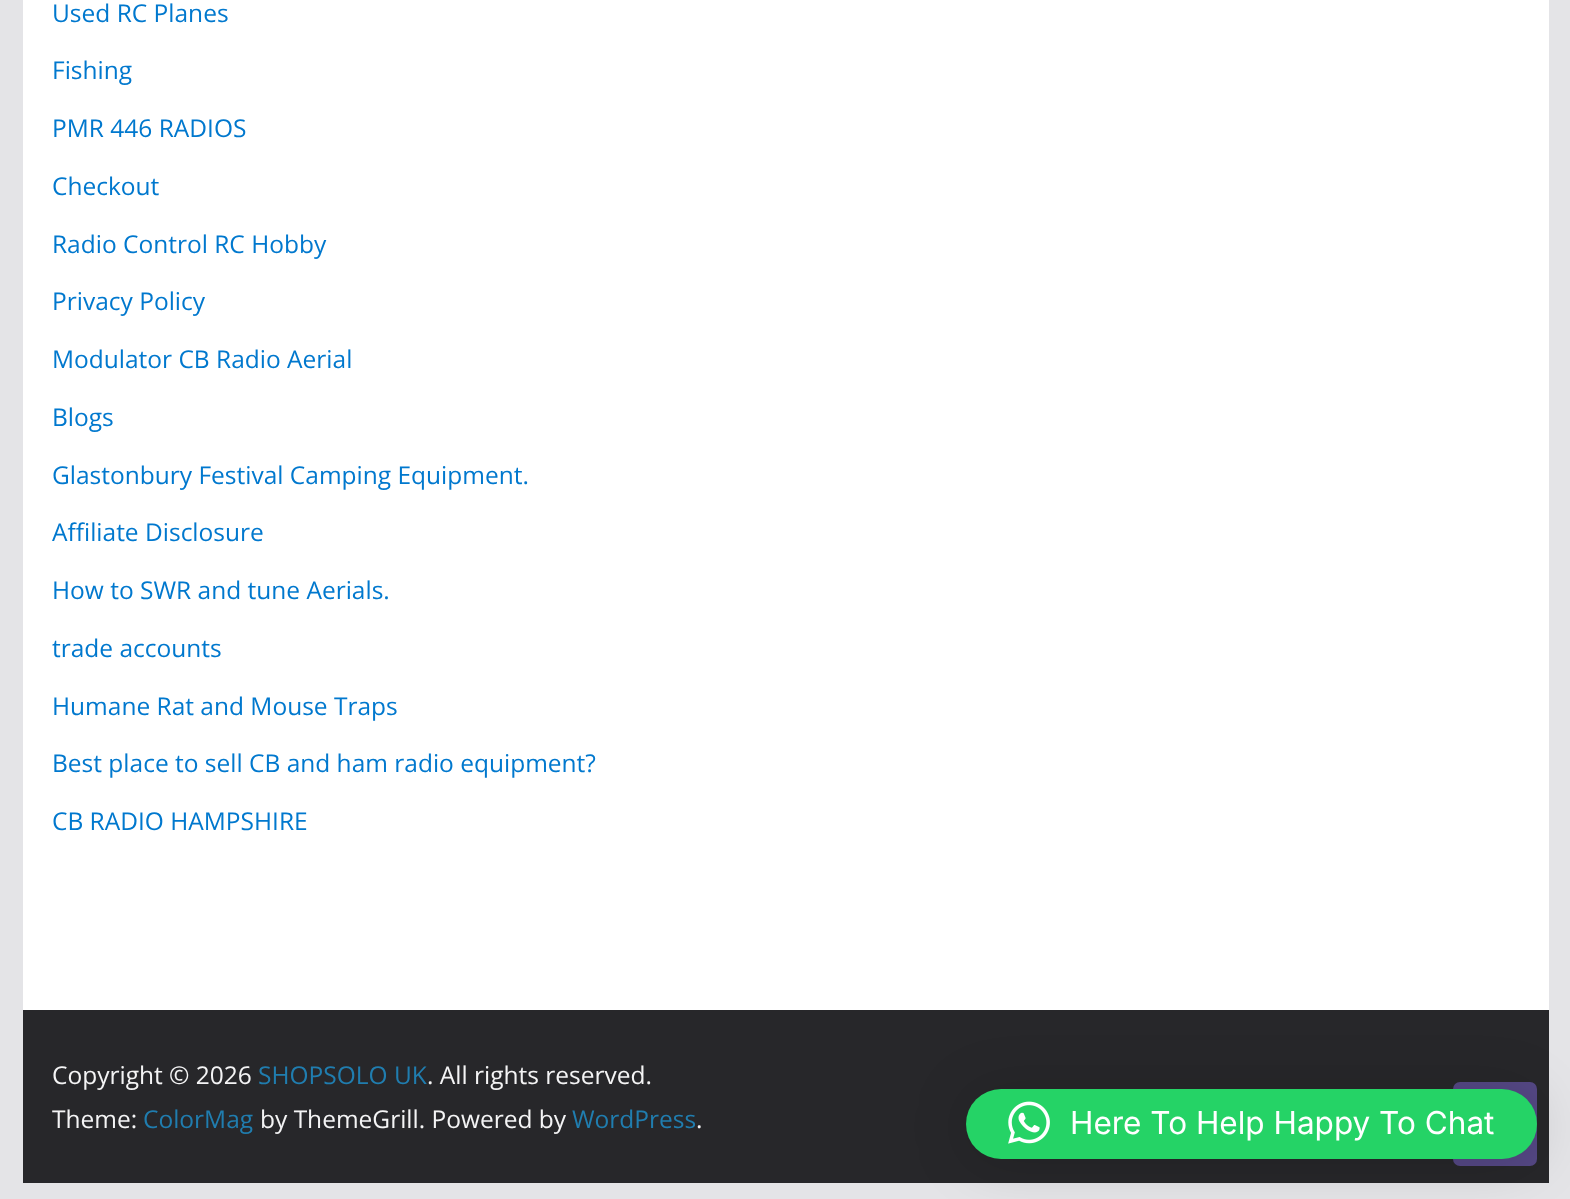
<svg xmlns="http://www.w3.org/2000/svg" width="1570" height="1199" viewBox="0 0 1570 1199">
  <rect width="100%" height="100%" fill="#e4e4e7"/>
  <path d="M23 0h1526v1010H23z" fill="#fff"/>
  <path d="M23 1010h1526v173H23z" fill="#27272a"/>
  <rect x="1453" y="1082" width="84" height="84" rx="7" fill="#554885"/>
  <rect x="966" y="1092" width="571" height="70" rx="35" fill="#00000029" filter="blur(28px)"/>
  <rect x="966" y="1089" width="571" height="70" rx="35" fill="#25d366"/>
  <image x="1008" y="1101" width="42" height="43" href="img/1.png"/>
  <g font-family="Open Sans" font-size="24.5" fill="#0078ce">
    <text x="52" y="22">Used RC Planes</text>
    <text x="52" y="79">Fishing</text>
    <text x="52" y="137">PMR 446 RADIOS</text>
    <text x="52" y="195">Checkout</text>
    <text x="52" y="253">Radio Control RC Hobby</text>
    <text x="52" y="310">Privacy Policy</text>
    <text x="52" y="368">Modulator CB Radio Aerial</text>
    <text x="52" y="426">Blogs</text>
    <text x="52" y="484">Glastonbury Festival Camping Equipment.</text>
    <text x="52" y="541">Affiliate Disclosure</text>
    <text x="52" y="599">How to SWR and tune Aerials.</text>
    <text x="52" y="657">trade accounts</text>
    <text x="52" y="715">Humane Rat and Mouse Traps</text>
    <text x="52" y="772">Best place to sell CB and ham radio equipment?</text>
    <text x="52" y="830">CB RADIO HAMPSHIRE</text>
  </g>
  <text x="52" y="1084" font-family="Open Sans" font-size="24.5" fill="#f4f4f5">Copyright © 2026</text>
  <text x="258" y="1084" font-family="Open Sans" font-size="24.5" fill="#207daf">SHOPSOLO UK</text>
  <g font-family="Open Sans" font-size="24.5" fill="#f4f4f5">
    <text x="427" y="1084">. All rights reserved.</text>
    <text x="52" y="1128">Theme:</text>
  </g>
  <text x="143" y="1128" font-family="Open Sans" font-size="24.5" fill="#207daf">ColorMag</text>
  <text x="260" y="1128" font-family="Open Sans" font-size="24.5" fill="#f4f4f5">by ThemeGrill. Powered by</text>
  <text x="572" y="1128" font-family="Open Sans" font-size="24.5" fill="#207daf">WordPress</text>
  <text x="696" y="1128" font-family="Open Sans" font-size="24.5" fill="#f4f4f5">.</text>
  <text x="1070" y="1134" font-family="Inter" font-size="31.5" fill="#fff">Here To Help Happy To Chat</text>
</svg>
